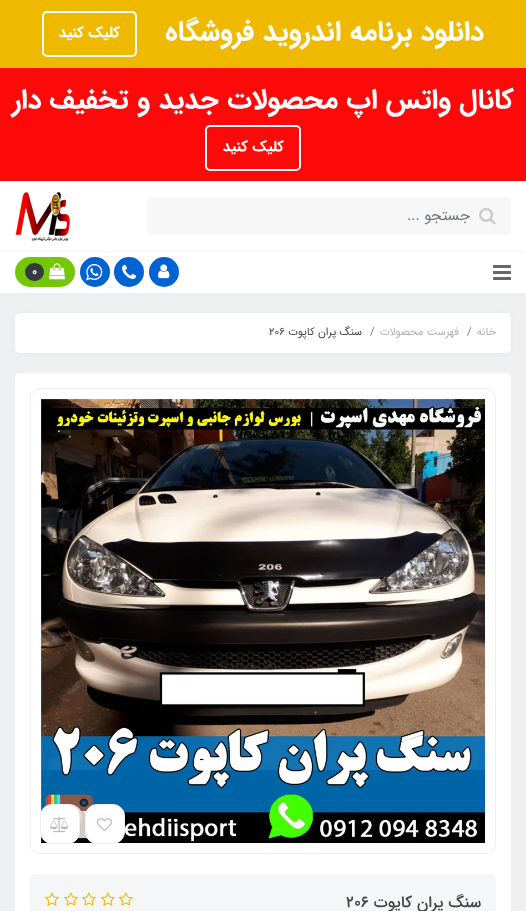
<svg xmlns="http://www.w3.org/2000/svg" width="526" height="911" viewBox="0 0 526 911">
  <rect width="100%" height="100%" fill="#eeeff1"/>
  <path d="M0 181h526v112H0z" fill="#fff"/>
  <path d="M0 0h526v68H0z" fill="#efb900"/>
  <rect x="43" y="12" width="93" height="44" rx="4" fill="none" stroke="#fff" stroke-width="2"/>
  <path d="M0 68h526v113H0z" fill="#fe0909"/>
  <rect x="206" y="126" width="94" height="44" rx="4" fill="none" stroke="#fff" stroke-width="2"/>
  <rect x="147" y="197" width="364" height="38" rx="5" fill="#f7f7f7"/>
  <image x="479" y="207" width="17" height="18" href="img/1.png"/>
  <image x="15" y="192" width="56" height="49" href="img/2.png"/>
  <path d="M0 251h526v1H0z" fill="#f5f5f5"/>
  <image x="493" y="265" width="18" height="15" href="img/3.png"/>
  <circle cx="164" cy="272" r="15" fill="#0063d1"/>
  <image x="158" y="264" width="12" height="15" href="img/4.png"/>
  <circle cx="129" cy="272" r="15" fill="#0063d1"/>
  <image x="122" y="264" width="15" height="15" href="img/5.png"/>
  <circle cx="95" cy="272" r="15" fill="#0063d1"/>
  <image x="86" y="264" width="17" height="17" href="img/6.png"/>
  <rect x="15" y="257" width="60" height="30" rx="15" fill="#74c704"/>
  <image x="49" y="263" width="16" height="17" href="img/7.png"/>
  <rect x="25" y="263" width="19" height="18" rx="9" fill="#343a40"/>
  <rect x="18" y="317" width="490" height="34" rx="2" fill="#0000001a" filter="blur(3.5px)"/>
  <rect x="15" y="313" width="496" height="40" rx="5" fill="#fff"/>
  <rect x="15" y="373" width="496" height="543" rx="5" fill="#fff"/>
  <rect x="30.5" y="388.5" width="465" height="465" rx="9.5" fill="none" stroke="#eee"/>
  <image x="41" y="399" width="444" height="444" href="img/8.png"/>
  <rect x="85.5" y="804.5" width="39" height="39" rx="11.5" fill="#fff" stroke="#eee"/>
  <image x="97" y="818" width="15" height="13" href="img/9.png"/>
  <rect x="40.5" y="804.5" width="39" height="39" rx="11.5" fill="#fff" stroke="#eee"/>
  <image x="50" y="817" width="19" height="16" href="img/10.png"/>
  <rect x="30" y="874" width="466" height="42" rx="5" fill="#f5f6f7"/>
  <image x="118" y="892" width="15" height="14" href="img/11.png"/>
  <image x="101" y="892" width="14" height="14" href="img/12.png"/>
  <image x="82" y="892" width="14" height="14" href="img/13.png"/>
  <image x="64" y="892" width="14" height="14" href="img/14.png"/>
  <image x="45" y="892" width="14" height="14" href="img/15.png"/>
  <text x="484" y="40" font-family="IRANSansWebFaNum" font-size="28" font-weight="bold" direction="rtl" fill="#fff">دانلود برنامه اندروید فروشگاه</text>
  <text x="120" y="37" font-family="IRANSansWebFaNum" font-size="15" font-weight="bold" direction="rtl" fill="#fff">کلیک کنید</text>
  <text x="514" y="108" font-family="IRANSansWebFaNum" font-size="28" font-weight="bold" direction="rtl" fill="#fff">کانال واتس اپ محصولات جدید و تخفیف دار</text>
  <text x="284" y="151" font-family="IRANSansWebFaNum" font-size="15" font-weight="bold" direction="rtl" fill="#fff">کلیک کنید</text>
  <text x="470" y="220" font-family="IRANSansWebFaNum" font-size="15" direction="rtl" fill="#6c757d">جستجو ...</text>
  <text x="32" y="275" font-family="IRANSansWebFaNum" font-size="12" font-weight="bold" fill="#fff">0</text>
  <text x="496" y="335" font-family="IRANSansWebFaNum" font-size="11" direction="rtl" fill="#b1b1b1">خانه</text>
  <text x="467" y="335" font-family="IRANSansWebFaNum" font-size="11" fill="#6c757d">/</text>
  <text x="459" y="335" font-family="IRANSansWebFaNum" font-size="11" direction="rtl" fill="#b1b1b1">فهرست محصولات</text>
  <text x="370" y="335" font-family="IRANSansWebFaNum" font-size="11" fill="#6c757d">/</text>
  <text x="362" y="335" font-family="IRANSansWebFaNum" font-size="11" direction="rtl" fill="#444">سنگ پران کاپوت</text>
  <text x="269" y="335" font-family="IRANSansWebFaNum" font-size="11" fill="#444">206</text>
  <text x="481" y="907" font-family="IRANSansWebFaNum" font-size="16" font-weight="500" direction="rtl" fill="#444">سنگ پران کاپوت</text>
  <text x="346" y="907" font-family="IRANSansWebFaNum" font-size="16" font-weight="500" fill="#444">206</text>
</svg>
